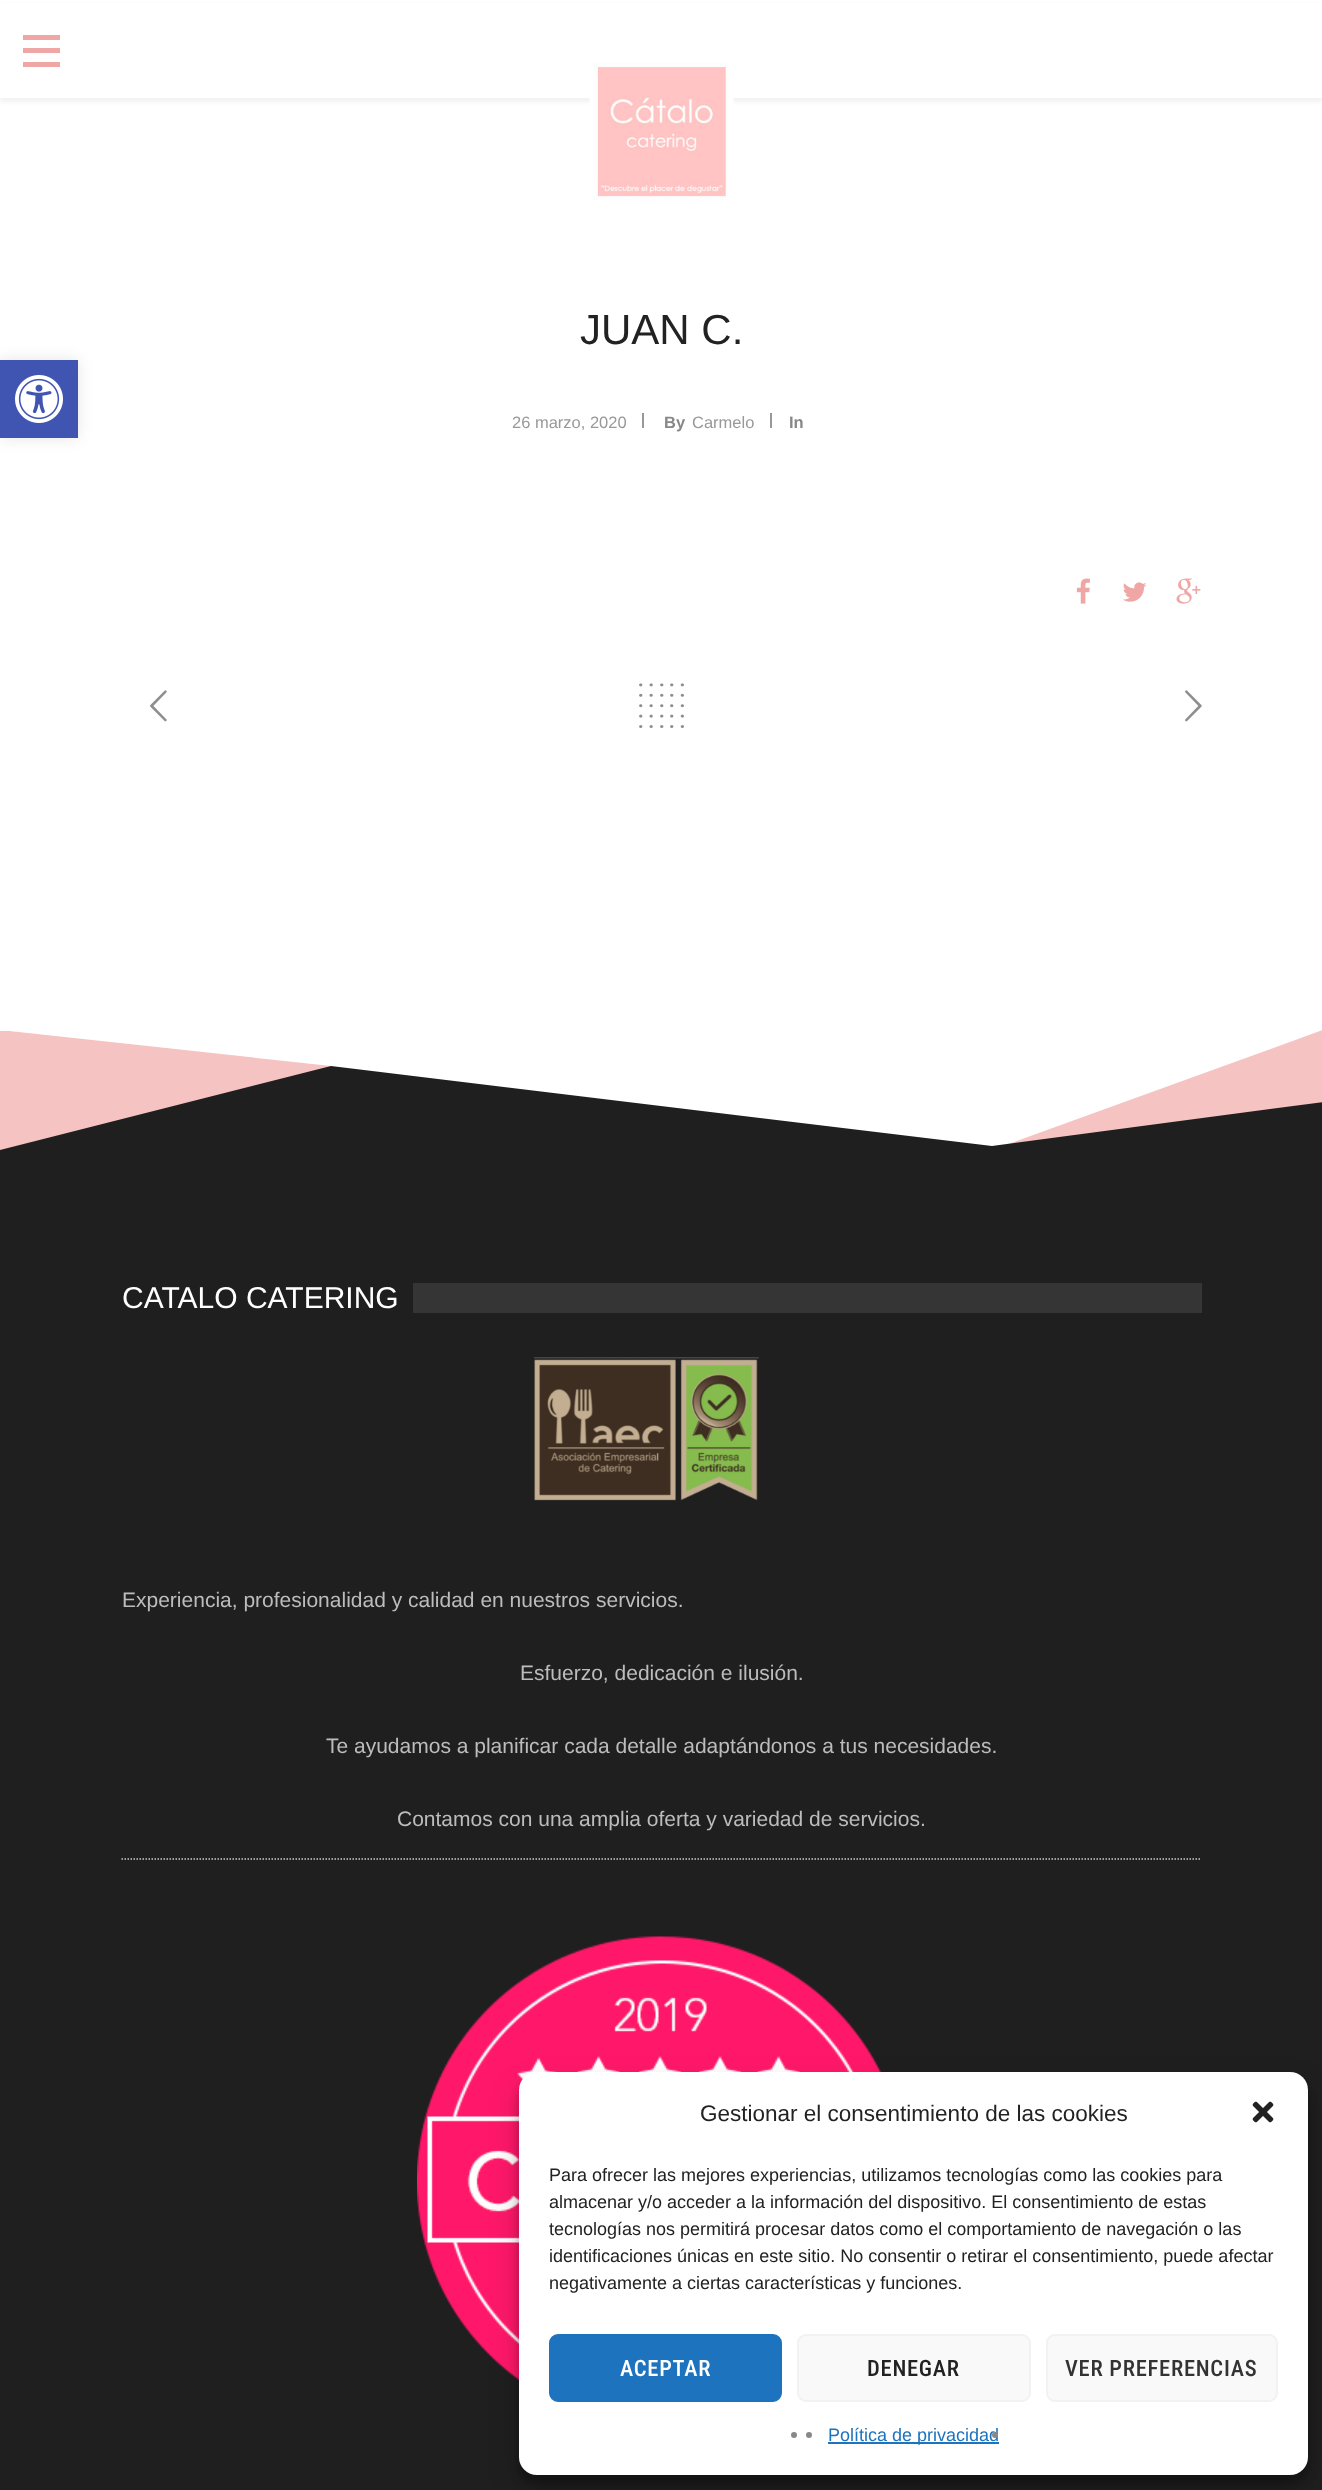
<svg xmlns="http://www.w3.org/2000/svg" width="1322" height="2490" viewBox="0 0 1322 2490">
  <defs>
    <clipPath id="clip1"><path d="M0 1031h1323v120H0z"/></clipPath>
  </defs>
  <rect width="100%" height="100%" fill="#fff"/>
  <path d="M0 5h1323v97H0z" fill="#0000000d" filter="blur(2px)"/>
  <path d="M0 3h1322v95H0z" fill="#fff"/>
  <path d="M23 48h37v5H23z" fill="#efa7a5"/>
  <path d="M23 35h37v5H23z" fill="#efa7a5"/>
  <path d="M23 62h37v5H23z" fill="#efa7a5"/>
  <image x="589" y="63" width="145" height="137" href="img/1.png"/>
  <path d="M0 360h78v78H0z" fill="#0000001a" filter="blur(7.5px)"/>
  <path d="M0 360h78v78H0z" fill="#4054b2"/>
  <image x="15" y="375" width="48" height="48" href="img/2.png"/>
  <path d="M642 413h2v15H642z" fill="#989898"/>
  <path d="M770 413h2v15H770z" fill="#989898"/>
  <image x="1076" y="578" width="14" height="26" href="img/3.png"/>
  <image x="1123" y="582" width="24" height="20" href="img/4.png"/>
  <image x="1176" y="578" width="25" height="26" href="img/5.png"/>
  <image x="150" y="690" width="17" height="32" href="img/6.png"/>
  <image x="639" y="683" width="45" height="45" href="img/7.png"/>
  <image x="1185" y="690" width="17" height="32" href="img/8.png"/>
  <g clip-path="url(#clip1)">
    <path d="M0 1030L331 1066V1150H0Z" fill="#f5c3c2"/>
  </g>
  <path d="M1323 1030V1150H992Z" fill="#f5c3c2"/>
  <path d="M0 1150L331 1066L992 1146L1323 1102V1150Z" fill="#1f1f1f"/>
  <path d="M0 1150h1322v1340H0z" fill="#1f1f1f"/>
  <path d="M413 1283h789v30H413z" fill="#353535"/>
  <image x="534" y="1357" width="225" height="144" href="img/9.png"/>
  <path d="M121.5 1859H1201.5" fill="none" stroke="#ccc" stroke-width="1.5" stroke-dasharray="1.5 1.5"/>
  <image x="417" y="1936" width="465" height="445" href="img/10.png"/>
  <rect x="519" y="2081" width="789" height="403" rx="18" fill="#0000003b" filter="blur(4.5px)"/>
  <rect x="519" y="2087" width="789" height="403" rx="18" fill="#00000030" filter="blur(15px)"/>
  <rect x="519" y="2072" width="789" height="403" rx="18" fill="#fff"/>
  <image x="1252" y="2101" width="22" height="22" href="img/11.png"/>
  <rect x="550" y="2335" width="231" height="66" rx="8" fill="#1e73be" stroke="#1e73be" stroke-width="2"/>
  <rect x="798" y="2335" width="232" height="66" rx="8" fill="#f9f9f9" stroke="#f2f2f2" stroke-width="2"/>
  <rect x="1047" y="2335" width="230" height="66" rx="8" fill="#f9f9f9" stroke="#f2f2f2" stroke-width="2"/>
  <circle cx="794" cy="2435" r="3" fill="#888"/>
  <circle cx="809" cy="2435" r="3" fill="#888"/>
  <path d="M828 2442h171v2H828z" fill="#1e73be"/>
  <text x="580" y="344" font-family="Liberation Sans" font-size="42" fill="#222">JUAN C.</text>
  <text x="512" y="428" font-family="Liberation Sans" font-size="16.5" fill="#999">26 marzo, 2020</text>
  <text x="664" y="428" font-family="Liberation Sans" font-size="16.5" font-weight="bold" fill="#888">By</text>
  <text x="692" y="428" font-family="Liberation Sans" font-size="16.5" fill="#999">Carmelo</text>
  <text x="789" y="428" font-family="Liberation Sans" font-size="16.5" font-weight="bold" fill="#888">In</text>
  <text x="122" y="1308" font-family="Liberation Sans" font-size="30" fill="#fff">CATALO CATERING</text>
  <g font-family="Liberation Sans" font-size="21" fill="#bcbcbc">
    <text x="122" y="1607">Experiencia, profesionalidad y calidad en nuestros servicios.</text>
    <text x="520" y="1680">Esfuerzo, dedicación e ilusión.</text>
    <text x="326" y="1753">Te ayudamos a planificar cada detalle adaptándonos a tus necesidades.</text>
    <text x="397" y="1826">Contamos con una amplia oferta y variedad de servicios.</text>
  </g>
  <text x="700" y="2121" font-family="Liberation Sans" font-size="22.5" fill="#222">Gestionar el consentimiento de las cookies</text>
  <g font-family="Liberation Sans" font-size="18" fill="#222">
    <text x="549" y="2181">Para ofrecer las mejores experiencias, utilizamos tecnologías como las cookies para</text>
    <text x="549" y="2208">almacenar y/o acceder a la información del dispositivo. El consentimiento de estas</text>
    <text x="549" y="2235">tecnologías nos permitirá procesar datos como el comportamiento de navegación o las</text>
    <text x="549" y="2262">identificaciones únicas en este sitio. No consentir o retirar el consentimiento, puede afectar</text>
    <text x="549" y="2289">negativamente a ciertas características y funciones.</text>
  </g>
  <text x="620" y="2376" font-family="Roboto Condensed" font-size="22.5" font-weight="500" letter-spacing="0.75" fill="#fff">ACEPTAR</text>
  <text x="867" y="2376" font-family="Roboto Condensed" font-size="22.5" font-weight="500" letter-spacing="0.75" fill="#222">DENEGAR</text>
  <text x="1065" y="2376" font-family="Roboto Condensed" font-size="22.5" font-weight="500" letter-spacing="0.75" fill="#333">VER PREFERENCIAS</text>
  <text x="828" y="2441" font-family="Liberation Sans" font-size="18" fill="#1e73be">Política de privacidad</text>
  <circle cx="995" cy="2435" r="3" fill="#888"/>
</svg>
